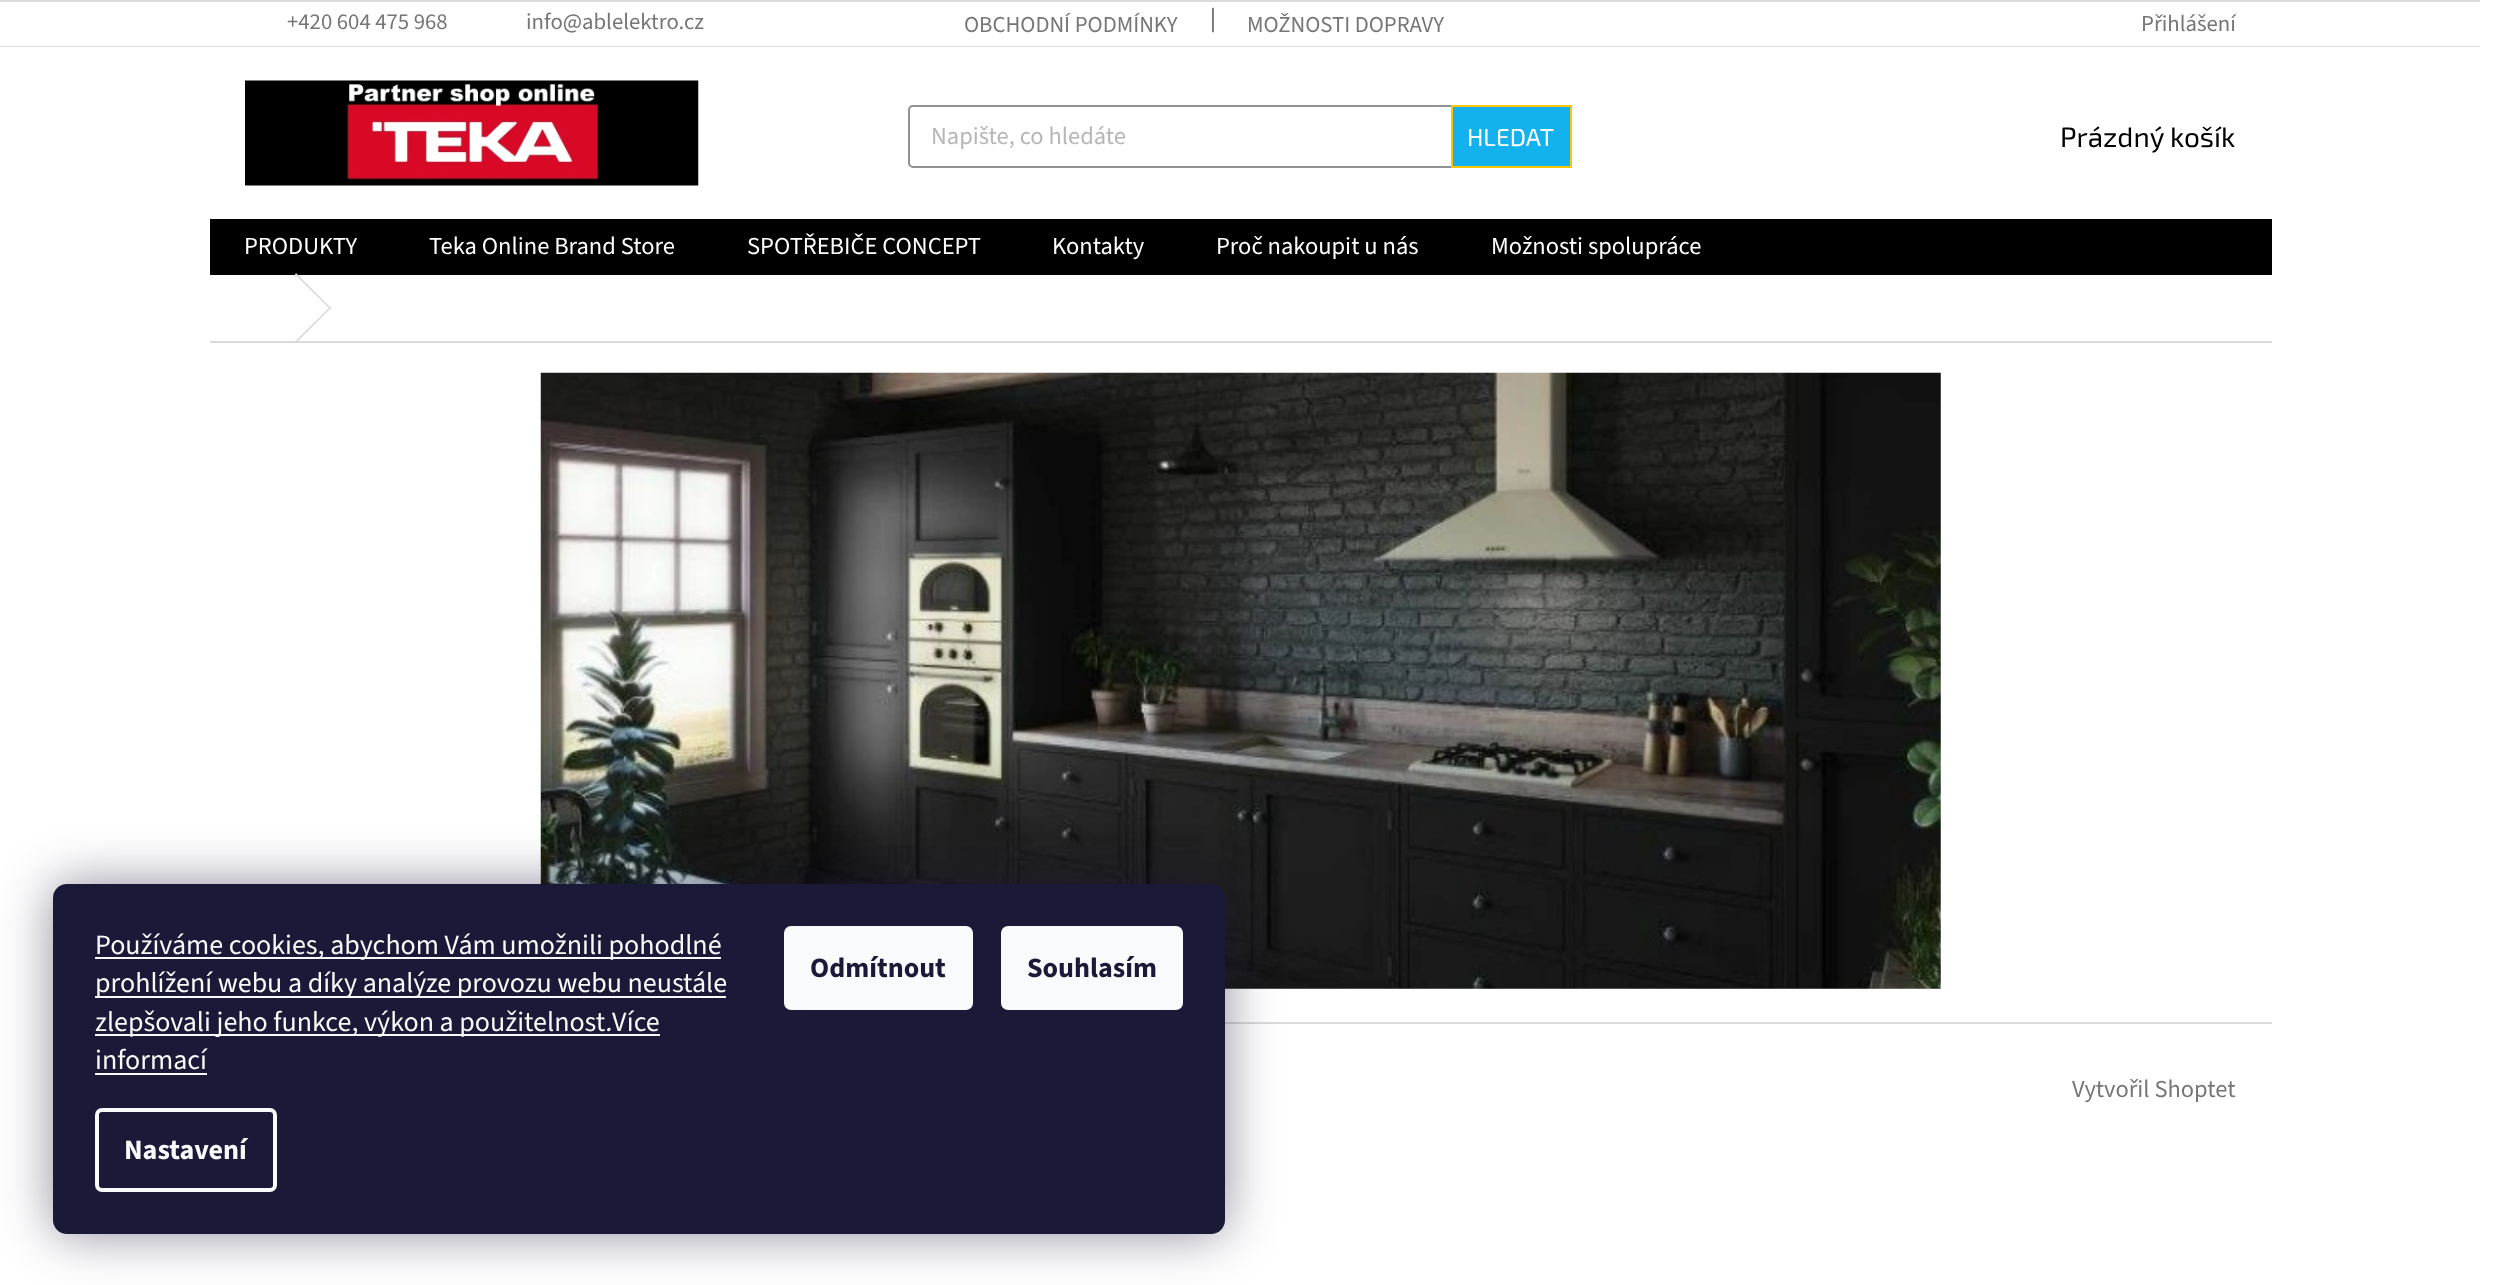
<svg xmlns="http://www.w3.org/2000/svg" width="2505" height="1285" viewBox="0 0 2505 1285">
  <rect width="100%" height="100%" fill="#fff"/>
  <path d="M0 0h2480v2H0z" fill="#dadada"/>
  <path d="M0 46h2480v1H0z" fill="#dadada"/>
  <image x="245" y="80" width="454" height="106" href="img/1.png"/>
  <rect x="909" y="106" width="662" height="61" rx="4" fill="none" stroke="#919191" stroke-width="2"/>
  <path d="M1452 106h119v61H1452z" fill="#14b1ef" stroke="#ffc702" stroke-width="2"/>
  <path d="M210 219h2062v56H210z" fill="#000"/>
  <path d="M210 341h2062v2H210z" fill="#dadada"/>
  <path d="M295 274.5L296 273L331.5 308.5L330.5 309.5Z" fill="#dadada"/>
  <path d="M330.5 306.5L331.5 307.5L296 343L295 341.5Z" fill="#dadada"/>
  <image x="540" y="372" width="1401" height="617" href="img/2.png"/>
  <path d="M1225 1022h1047v2H1225z" fill="#dadada"/>
  <rect x="53" y="884" width="1172" height="350" rx="14" fill="#1b193980" filter="blur(26px)"/>
  <rect x="53" y="884" width="1172" height="350" rx="14" fill="#1a1937"/>
  <path d="M95 957h626v2H95z" fill="#f8fafb"/>
  <path d="M95 996h631v2H95z" fill="#f8fafb"/>
  <path d="M95 1034h565v2H95z" fill="#f8fafb"/>
  <path d="M95 1073h112v2H95z" fill="#f8fafb"/>
  <rect x="97" y="1110" width="178" height="80" rx="5" fill="none" stroke="#f8fafb" stroke-width="4"/>
  <rect x="784" y="926" width="189" height="84" rx="7" fill="#f8fafb"/>
  <rect x="1001" y="926" width="182" height="84" rx="7" fill="#f8fafb"/>
  <g font-family="'Source Sans 3'" font-size="22.75" fill="#767676">
    <text x="287" y="29">+420 604 475 968</text>
    <text x="526" y="29">info@ablelektro.cz</text>
    <text x="964" y="32">OBCHODNÍ PODMÍNKY</text>
  </g>
  <text x="1210" y="26" font-family="'Source Sans 3'" font-size="24.5" fill="#4d4d4d">|</text>
  <g font-family="'Source Sans 3'" font-size="22.75" fill="#767676">
    <text x="1247" y="32">MOŽNOSTI DOPRAVY</text>
    <text x="2141" y="31">Přihlášení</text>
  </g>
  <text x="931" y="144" font-family="'Source Sans 3'" font-size="24.5" fill="#b6b6b6">Napište, co hledáte</text>
  <text x="1467" y="146" font-family="'Exo 2'" font-size="24.5" fill="#fff">HLEDAT</text>
  <text x="2060" y="147" font-family="'Exo 2'" font-size="28" fill="#000">Prázdný košík</text>
  <g font-family="'Source Sans 3'" font-size="24.5" fill="#fff">
    <text x="244" y="254">PRODUKTY</text>
    <text x="429" y="254">Teka Online Brand Store</text>
    <text x="747" y="254">SPOTŘEBIČE CONCEPT</text>
    <text x="1052" y="254">Kontakty</text>
    <text x="1216" y="254">Proč nakoupit u nás</text>
    <text x="1491" y="254">Možnosti spolupráce</text>
  </g>
  <text x="2072" y="1097" font-family="'Source Sans 3'" font-size="24.5" fill="#767676">Vytvořil Shoptet</text>
  <g font-family="'Source Sans 3'" font-size="28" fill="#f8fafb">
    <text x="95" y="954">Používáme cookies, abychom Vám umožnili pohodlné</text>
    <text x="95" y="992">prohlížení webu a díky analýze provozu webu neustále</text>
    <text x="95" y="1031">zlepšovali jeho funkce, výkon a použitelnost</text>
  </g>
  <text x="605" y="1031" font-family="'Source Sans 3'" font-size="28" font-style="italic" fill="#f8fafb">.</text>
  <g font-family="'Source Sans 3'" font-size="28" fill="#f8fafb">
    <text x="612" y="1031">Více</text>
    <text x="95" y="1069">informací</text>
  </g>
  <text x="124" y="1159" font-family="'Source Sans 3'" font-size="28" font-weight="bold" fill="#f8fafb">Nastavení</text>
  <g font-family="'Source Sans 3'" font-size="28" font-weight="bold" fill="#1a1937">
    <text x="810" y="977">Odmítnout</text>
    <text x="1027" y="977">Souhlasím</text>
  </g>
</svg>
